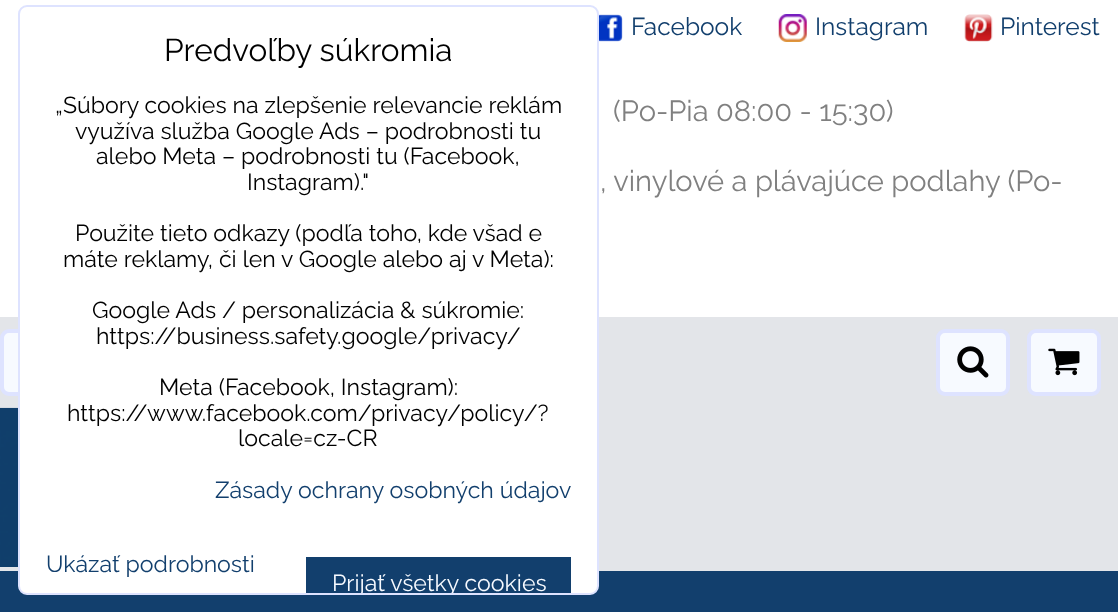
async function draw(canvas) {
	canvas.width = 1118;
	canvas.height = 612;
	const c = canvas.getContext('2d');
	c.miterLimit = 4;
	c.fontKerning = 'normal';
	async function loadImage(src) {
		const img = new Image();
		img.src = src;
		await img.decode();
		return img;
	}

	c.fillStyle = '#e3e5e9';
	c.fillRect(0, 0, 1118, 612);
	c.fillStyle = '#fff';
	c.fillRect(0, 0, 1118, 317);
	c.fillStyle = '#f7faff';
	c.beginPath();
	c.roundRect(2, 331, 71, 63, 7);
	c.fill();
	c.strokeStyle = '#dee3ff';
	c.lineWidth = 4;
	c.stroke();
	c.fillStyle = '#123f6d';
	c.fillRect(0, 571, 1118, 41);
	c.fillStyle = '#fff';
	c.beginPath();
	c.roundRect(19, 6, 579, 588, 8);
	c.fill();
	c.lineWidth = 2;
	c.stroke();
	c.font = '100 31.5px Raleway';
	c.fillStyle = '#000';
	c.fillText('Predvoľby súkromia', 164, 61);
	c.font = '100 23.1px Raleway';
	for (const [text, x, y] of [
		['„Súbory cookies na zlepšenie relevancie reklám', 55, 113],
		['využíva služba Google Ads – podrobnosti tu', 75, 139],
		['alebo Meta – podrobnosti tu (Facebook,', 96, 164],
		['Instagram)."', 247, 190],
		['Použite tieto odkazy (podľa toho, kde všad e', 75, 241],
		['máte reklamy, či len v Google alebo aj v Meta):', 63, 267],
		['Google Ads / personalizácia & súkromie:', 92, 318],
		['https://business.safety.google/privacy/', 96, 344],
		['Meta (Facebook, Instagram):', 159, 395],
		['https://www.facebook.com/privacy/policy/?', 67, 421],
		['locale=cz-CR', 238, 446],
	]) {
		c.fillText(text, x, y);
	}
	c.fillStyle = '#123f6d';
	c.fillText('Zásady ochrany osobných údajov', 215, 498);
	c.fillText('Ukázať podrobnosti', 46, 572);
	c.fillRect(306, 557, 265, 36);
	c.save();
	c.beginPath();
	c.roundRect(19, 7, 578, 586, 7);
	c.clip();
	c.fillStyle = '#f7faff';
	c.fillText('Prijať všetky cookies', 332, 591);
	c.restore();
	c.drawImage(await loadImage('img1.png'), 599, 14, 24, 28);
	c.font = '100 24.5px Raleway';
	c.fillText('Facebook', 631, 35);
	c.drawImage(await loadImage('img2.png'), 778, 14, 29, 28);
	c.fillText('Instagram', 815, 35);
	c.drawImage(await loadImage('img3.png'), 964, 14, 29, 28);
	c.fillText('Pinterest', 1000, 35);
	c.font = '100 29.1px Raleway';
	c.fillStyle = '#808080';
	c.fillText('(Po-Pia 08:00 - 15:30)', 613, 121);
	c.fillText(', vinylové a plávajúce podlahy (Po-', 600, 191);
	c.fillStyle = '#f7faff';
	c.beginPath();
	c.roundRect(938, 331, 70, 63, 7);
	c.fill();
	c.lineWidth = 4;
	c.stroke();
	c.drawImage(await loadImage('img4.png'), 957, 346, 32, 32);
	c.beginPath();
	c.roundRect(1029, 331, 70, 63, 7);
	c.fill();
	c.stroke();
	c.drawImage(await loadImage('img5.png'), 1048, 348, 32, 28);
	c.drawImage(await loadImage('img6.png'), 0, 407, 18, 160);
}

draw(document.querySelector('canvas'));
